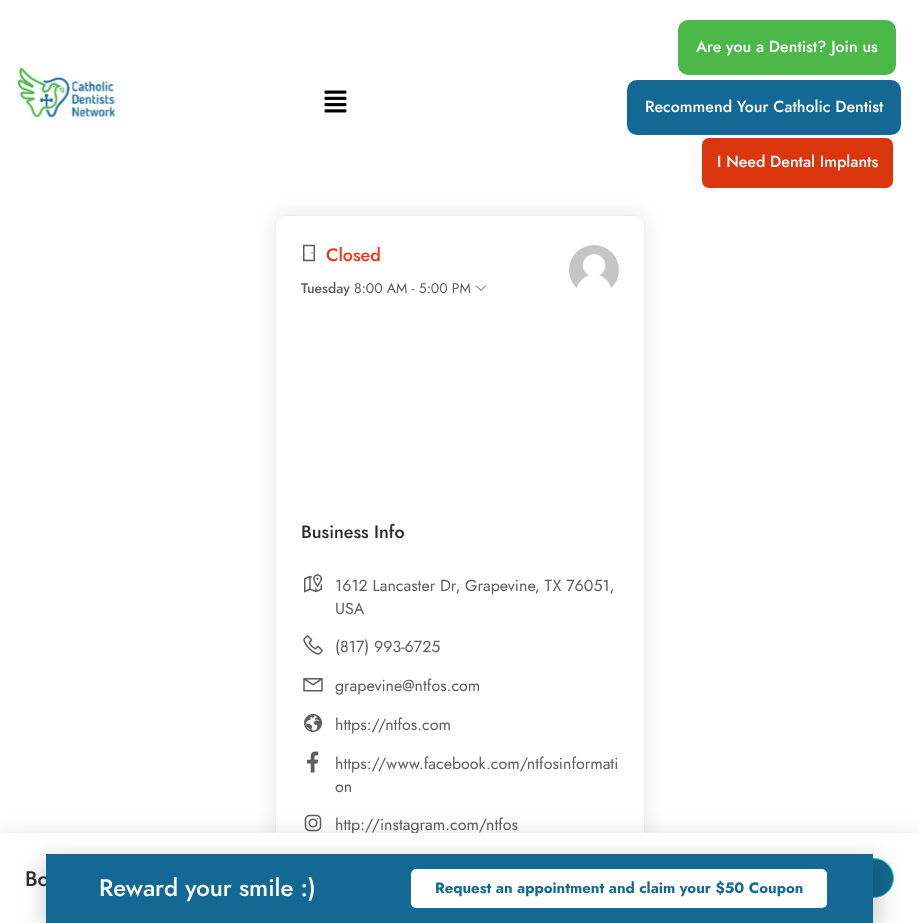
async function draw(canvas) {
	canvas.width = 919;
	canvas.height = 923;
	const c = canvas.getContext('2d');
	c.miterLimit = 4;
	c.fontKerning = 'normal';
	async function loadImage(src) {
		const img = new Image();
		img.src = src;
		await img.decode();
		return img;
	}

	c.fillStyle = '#fff';
	c.fillRect(0, 0, 919, 923);
	c.fillStyle = '#0000001a';
	c.filter = 'blur(10px)';
	c.beginPath();
	c.roundRect(275, 215, 370, 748, 10);
	c.fill();
	c.filter = 'none';
	c.fillStyle = '#fff';
	c.fillRect(280, 202, 360, 4);
	c.drawImage(await loadImage('img1.png'), 18, 68, 97, 50);
	c.drawImage(await loadImage('img2.png'), 324, 90, 23, 23);
	c.fillStyle = '#4cb84a';
	c.beginPath();
	c.roundRect(679.5, 21.5, 215, 52, 8.5);
	c.fill();
	c.strokeStyle = '#4cb84a';
	c.lineWidth = 3;
	c.stroke();
	c.font = '500 16px Jost';
	c.fillStyle = '#fff';
	c.fillText('Are you a Dentist? Join us', 696, 52);
	c.fillStyle = '#136993';
	c.beginPath();
	c.roundRect(628.5, 81.5, 271, 52, 8.5);
	c.fill();
	c.strokeStyle = '#136993';
	c.stroke();
	c.fillStyle = '#fff';
	c.fillText('Recommend Your Catholic Dentist', 645, 112);
	c.fillStyle = '#db360e';
	c.beginPath();
	c.roundRect(700.5, 136.5, 194, 53, 8.5);
	c.fill();
	c.strokeStyle = '#fff';
	c.stroke();
	c.fillStyle = '#fff';
	c.fillText('I Need Dental Implants', 717, 167);
	c.beginPath();
	c.roundRect(275.5, 215.5, 369, 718, 9.5);
	c.fill();
	c.strokeStyle = '#eee';
	c.lineWidth = 1;
	c.stroke();
	c.drawImage(await loadImage('img3.png'), 303, 244, 12, 18);
	c.font = '500 18px Jost';
	c.fillStyle = '#f43319';
	c.fillText('Closed', 326, 261);
	c.font = '500 14px Jost';
	c.fillStyle = '#5d5d5d';
	c.fillText('Tuesday', 301, 293);
	c.font = '14px Jost';
	c.fillText('8:00 AM - 5:00 PM', 354, 293);
	c.drawImage(await loadImage('img4.png'), 476, 285, 10, 6);
	c.drawImage(await loadImage('img5.png'), 569, 245, 50, 43);
	c.font = '500 18px Jost';
	c.fillStyle = '#2d2d2d';
	c.fillText('Business Info', 301, 538);
	c.drawImage(await loadImage('img6.png'), 304, 574, 18, 19);
	c.font = '16px Jost';
	c.fillStyle = '#5d5d5d';
	c.fillText('1612 Lancaster Dr, Grapevine, TX 76051,', 335, 591);
	c.fillText('USA', 335, 614);
	c.drawImage(await loadImage('img7.png'), 303, 635, 20, 20);
	c.fillText('(817) 993-6725', 335, 652);
	c.drawImage(await loadImage('img8.png'), 303, 678, 20, 14);
	c.fillText('grapevine@ntfos.com', 335, 691);
	c.drawImage(await loadImage('img9.png'), 304, 714, 18, 18);
	c.fillText('https://ntfos.com', 335, 730);
	c.drawImage(await loadImage('img10.png'), 307, 751, 12, 22);
	c.fillText('https://www.facebook.com/ntfosinformati', 335, 769);
	c.fillText('on', 335, 792);
	c.drawImage(await loadImage('img11.png'), 304, 814, 18, 18);
	c.fillText('http://instagram.com/ntfos', 335, 830);
	c.fillStyle = '#0000001a';
	c.filter = 'blur(10px)';
	c.beginPath();
	c.rect(0, 833, 919, 90);
	c.fill();
	c.filter = 'none';
	c.fillStyle = '#fff';
	c.fillRect(0, 833, 919, 90);
	c.font = '500 21px Jost';
	c.fillStyle = '#2d2d2d';
	c.fillText('Bo', 25, 886);
	c.fillStyle = '#146993';
	c.beginPath();
	c.roundRect(809.5, 858.5, 84, 39, 19.5);
	c.fill();
	c.strokeStyle = '#23d3d3';
	c.stroke();
	c.fillStyle = '#00000033';
	c.filter = 'blur(11.5px)';
	c.beginPath();
	c.rect(45, 859, 833, 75);
	c.fill();
	c.filter = 'none';
	c.fillStyle = '#136993';
	c.fillRect(46, 854, 827, 69);
	c.font = '500 24px Jost';
	c.fillStyle = '#fff';
	c.fillText('Reward your smile :)', 99, 896);
	c.beginPath();
	c.roundRect(411, 869, 416, 39, 5);
	c.fill();
	c.font = 'bold 15px Jost';
	c.fillStyle = '#136993';
	c.fillText('Request an appointment and claim your $50 Coupon', 435, 893);
}

draw(document.querySelector('canvas'));
